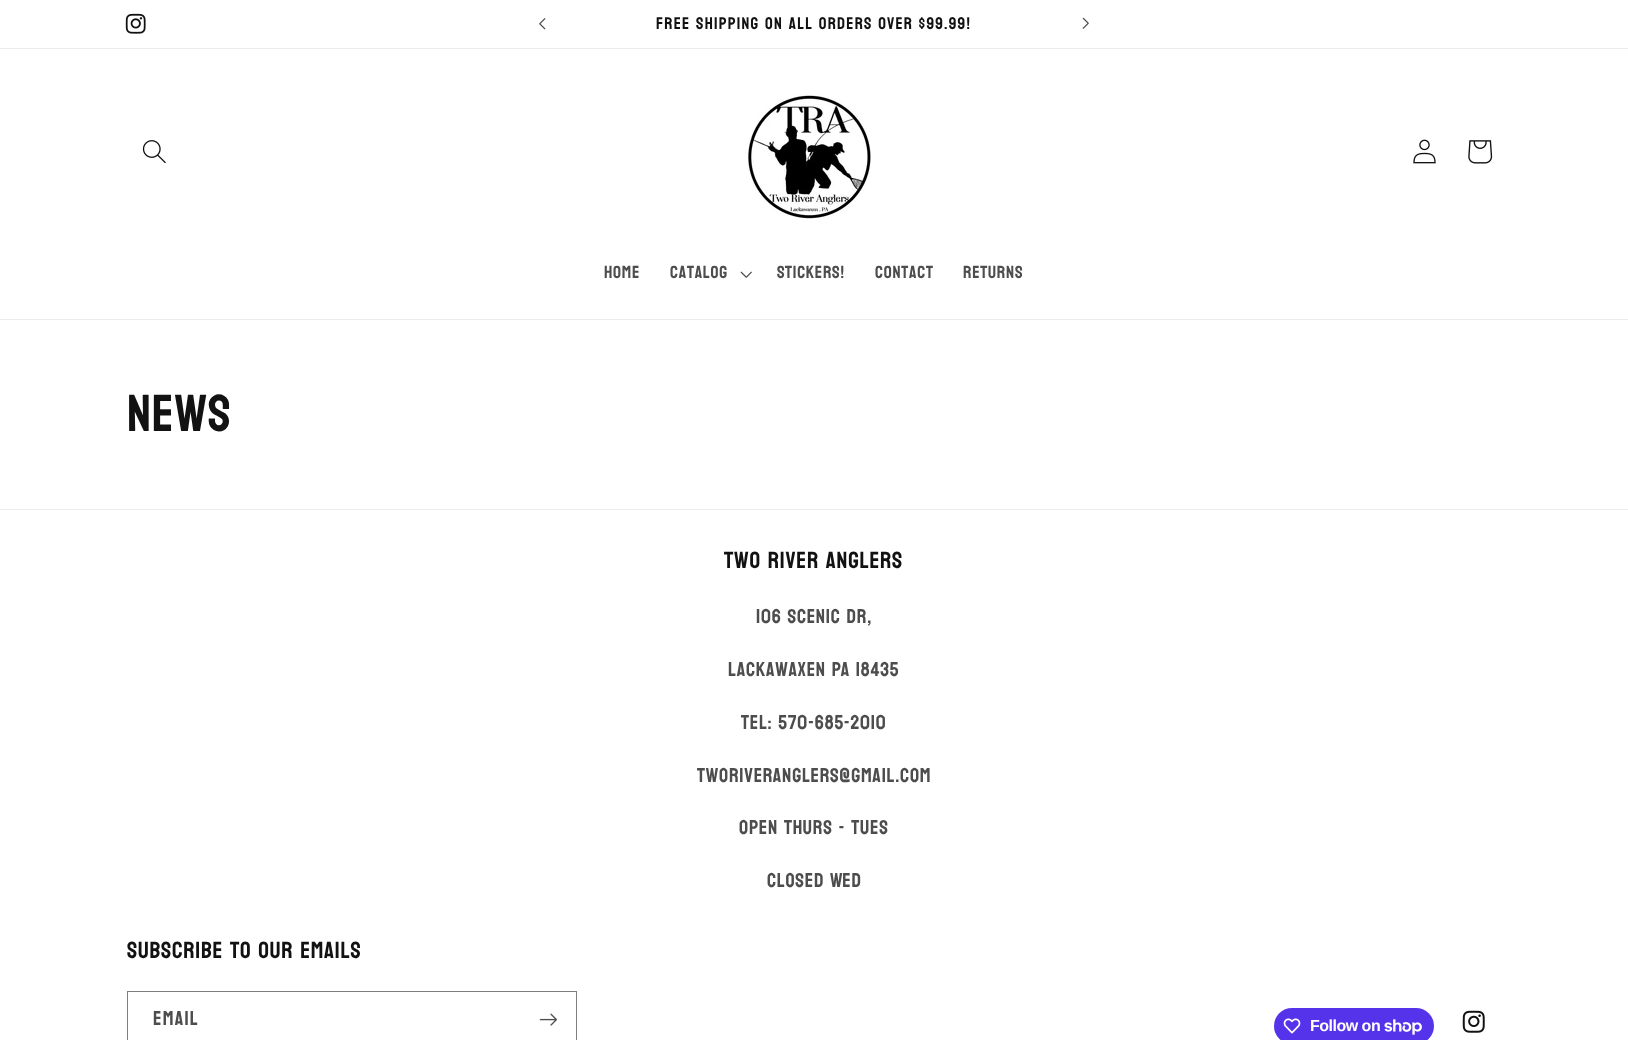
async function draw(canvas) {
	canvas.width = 1628;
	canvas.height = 1040;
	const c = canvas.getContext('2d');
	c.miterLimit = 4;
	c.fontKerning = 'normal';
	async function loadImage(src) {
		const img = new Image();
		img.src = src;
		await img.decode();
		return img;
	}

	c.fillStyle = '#fff';
	c.fillRect(0, 0, 1628, 1040);
	c.fillStyle = '#ececec';
	c.fillRect(0, 48, 1628, 1);
	c.drawImage(await loadImage('img1.png'), 125, 13, 21, 21);
	c.drawImage(await loadImage('img2.png'), 539, 18, 7, 12);
	c.letterSpacing = '1.25px';
	c.font = '16.9px Bayon';
	c.fillStyle = '#121212';
	c.fillText('FREE SHIPPING ON ALL ORDERS OVER $99.99!', 656, 29);
	c.drawImage(await loadImage('img3.png'), 1082, 17, 7, 12);
	c.fillStyle = '#ececec';
	c.fillRect(0, 319, 1628, 1);
	c.drawImage(await loadImage('img4.png'), 142, 140, 24, 24);
	c.drawImage(await loadImage('img5.png'), 747, 94, 124, 125);
	c.drawImage(await loadImage('img6.png'), 1413, 139, 23, 25);
	c.drawImage(await loadImage('img7.png'), 1468, 140, 25, 24);
	c.letterSpacing = '0.75px';
	c.font = '17.5px Bayon';
	c.fillStyle = '#4d4d4d';
	c.fillText('Home', 604, 278);
	c.fillText('Catalog', 670, 278);
	c.drawImage(await loadImage('img8.png'), 740, 271, 12, 7);
	for (const [text, x, y] of [
		['STICKERS!', 777, 278],
		['Contact', 875, 278],
		['Returns', 963, 278],
	]) {
		c.fillText(text, x, y);
	}
	c.font = '52px Bayon';
	c.fillStyle = '#121212';
	c.fillText('News', 127, 431);
	c.fillStyle = '#ececec';
	c.fillRect(0, 509, 1628, 1);
	c.font = '23.4px Bayon';
	c.fillStyle = '#121212';
	c.fillText('Two River Anglers', 724, 568);
	c.font = '20px Bayon';
	c.fillStyle = '#4d4d4d';
	for (const [text, x, y] of [
		['106 Scenic Dr,', 756, 623],
		['Lackawaxen PA 18435', 728, 676],
		['tel: 570-685-2010', 741, 729],
		['tworiveranglers@gmail.com', 697, 782],
		['OPEN Thurs - Tues', 739, 834],
		['CLOSED Wed', 767, 887],
	]) {
		c.fillText(text, x, y);
	}
	c.font = '23.4px Bayon';
	c.fillStyle = '#121212';
	c.fillText('Subscribe to our emails', 127, 958);
	c.strokeStyle = '#7d7d7d';
	c.strokeRect(127.5, 991.5, 449, 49);
	c.letterSpacing = '1.25px';
	c.font = '20px Bayon';
	c.fillStyle = '#4d4d4d';
	c.fillText('Email', 153, 1025);
	c.drawImage(await loadImage('img9.png'), 539, 1013, 18, 13);
	c.fillStyle = '#5433eb';
	c.beginPath();
	c.roundRect(1274, 1008, 160, 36, 18);
	c.fill();
	c.drawImage(await loadImage('img10.png'), 1283, 1018, 18, 16);
	c.letterSpacing = '-0.5px';
	c.font = 'bold 16px Liberation Sans';
	c.fillStyle = '#fff';
	c.fillText('Follow on', 1310, 1031);
	c.drawImage(await loadImage('img11.png'), 1384, 1019, 38, 16);
	c.drawImage(await loadImage('img12.png'), 1462, 1010, 23, 23);
}

draw(document.querySelector('canvas'));
